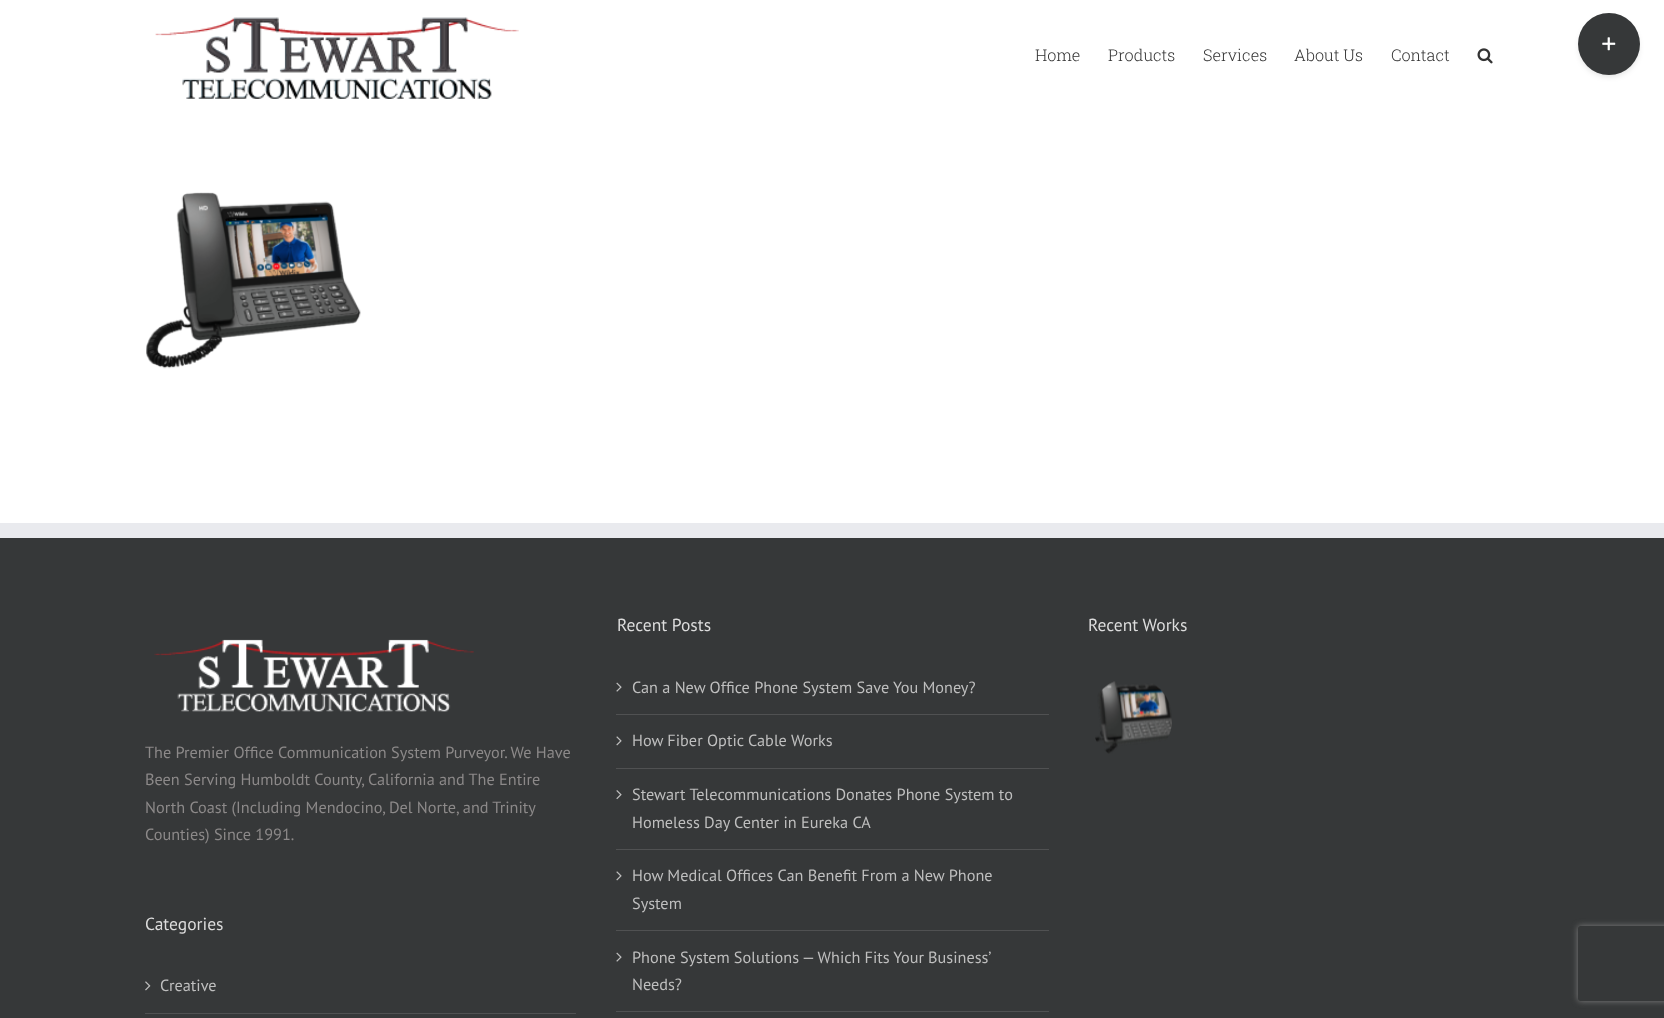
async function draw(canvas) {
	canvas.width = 1664;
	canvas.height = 1018;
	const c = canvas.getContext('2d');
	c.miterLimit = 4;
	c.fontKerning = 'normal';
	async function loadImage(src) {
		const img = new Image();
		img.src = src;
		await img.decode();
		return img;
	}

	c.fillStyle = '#fff';
	c.fillRect(0, 0, 1664, 1018);
	c.drawImage(await loadImage('img1.png'), 155, 17, 364, 82);
	c.font = '300 16.25px Roboto Slab';
	c.fillStyle = '#333';
	for (const [text, x, y] of [
		['Home', 1035, 61],
		['Products', 1108, 61],
		['Services', 1203, 61],
		['About Us', 1294, 61],
		['Contact', 1391, 61],
	]) {
		c.fillText(text, x, y);
	}
	c.drawImage(await loadImage('img2.png'), 1477, 48, 16, 16);
	c.fillStyle = '#00000024';
	c.filter = 'blur(3px)';
	c.beginPath();
	c.roundRect(1580, 19, 58, 57, 28.5);
	c.fill();
	c.filter = 'none';
	c.fillStyle = '#363839';
	c.beginPath();
	c.arc(1609, 44, 31, 0, 2 * Math.PI);
	c.fill();
	c.drawImage(await loadImage('img3.png'), 1602, 37, 14, 14);
	c.drawImage(await loadImage('img4.png'), 146, 192, 215, 177);
	c.fillRect(0, 538, 1664, 480);
	c.fillStyle = '#e9eaee';
	c.fillRect(0, 523, 1664, 15);
	c.font = '17.5px PT Sans';
	c.fillStyle = '#ddd';
	c.fillText('Recent Posts', 617, 631);
	c.fillStyle = '#505152';
	c.fillRect(616, 714, 433, 1);
	c.drawImage(await loadImage('img5.png'), 616, 682, 6, 10);
	c.font = '16.25px PT Sans';
	c.fillStyle = '#bfbfbf';
	c.fillText('Can a New Office Phone System Save You Money?', 632, 693);
	c.fillStyle = '#505152';
	c.fillRect(616, 768, 433, 1);
	c.drawImage(await loadImage('img6.png'), 616, 736, 6, 10);
	c.fillStyle = '#bfbfbf';
	c.fillText('How Fiber Optic Cable Works', 632, 746);
	c.fillStyle = '#505152';
	c.fillRect(616, 849, 433, 1);
	c.drawImage(await loadImage('img7.png'), 616, 790, 6, 10);
	c.fillStyle = '#bfbfbf';
	c.fillText('Stewart Telecommunications Donates Phone System to', 632, 800);
	c.fillText('Homeless Day Center in Eureka CA', 632, 828);
	c.fillStyle = '#505152';
	c.fillRect(616, 930, 433, 1);
	c.drawImage(await loadImage('img6.png'), 616, 871, 6, 10);
	c.fillStyle = '#bfbfbf';
	c.fillText('How Medical Offices Can Benefit From a New Phone', 632, 881);
	c.fillText('System', 632, 909);
	c.fillStyle = '#505152';
	c.fillRect(616, 1011, 433, 1);
	c.drawImage(await loadImage('img5.png'), 616, 952, 6, 10);
	c.wordSpacing = '-0.25px';
	c.fillStyle = '#bfbfbf';
	c.fillText('Phone System Solutions — Which Fits Your Business’', 632, 963);
	c.wordSpacing = '0px';
	c.fillText('Needs?', 632, 990);
	c.font = '17.5px PT Sans';
	c.fillStyle = '#ddd';
	c.fillText('Recent Works', 1088, 631);
	c.drawImage(await loadImage('img8.png'), 1095, 681, 77, 73);
	c.drawImage(await loadImage('img9.png'), 154, 639, 320, 73);
	c.font = '16.25px PT Sans';
	c.fillStyle = '#8c8989';
	for (const [text, x, y] of [
		['The Premier Office Communication System Purveyor. We Have', 145, 758],
		['Been Serving Humboldt County, California and The Entire', 145, 785],
		['North Coast (Including Mendocino, Del Norte, and Trinity', 145, 813],
		['Counties) Since 1991.', 145, 840],
	]) {
		c.fillText(text, x, y);
	}
	c.font = '17.5px PT Sans';
	c.fillStyle = '#ddd';
	c.fillText('Categories', 145, 930);
	c.fillStyle = '#505152';
	c.fillRect(145, 1013, 431, 1);
	c.drawImage(await loadImage('img10.png'), 145, 981, 6, 10);
	c.font = '16.25px PT Sans';
	c.fillStyle = '#bfbfbf';
	c.fillText('Creative', 160, 991);
	c.save();
	c.beginPath();
	c.moveTo(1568, 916);
	c.lineTo(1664, 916);
	c.lineTo(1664, 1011);
	c.lineTo(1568, 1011);
	c.closePath();
	c.moveTo(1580.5, 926);
	c.lineTo(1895.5, 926);
	c.bezierCurveTo(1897, 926, 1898, 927, 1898, 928.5);
	c.lineTo(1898, 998.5);
	c.bezierCurveTo(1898, 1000, 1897, 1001, 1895.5, 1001);
	c.lineTo(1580.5, 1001);
	c.bezierCurveTo(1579, 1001, 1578, 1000, 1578, 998.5);
	c.lineTo(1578, 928.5);
	c.bezierCurveTo(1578, 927, 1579, 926, 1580.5, 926);
	c.closePath();
	c.clip('evenodd');
	c.fillStyle = '#808080';
	c.filter = 'blur(3px)';
	c.beginPath();
	c.roundRect(1578, 926, 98, 75, 2.5);
	c.fill();
	c.filter = 'none';
	c.restore();
}

draw(document.querySelector('canvas'));
